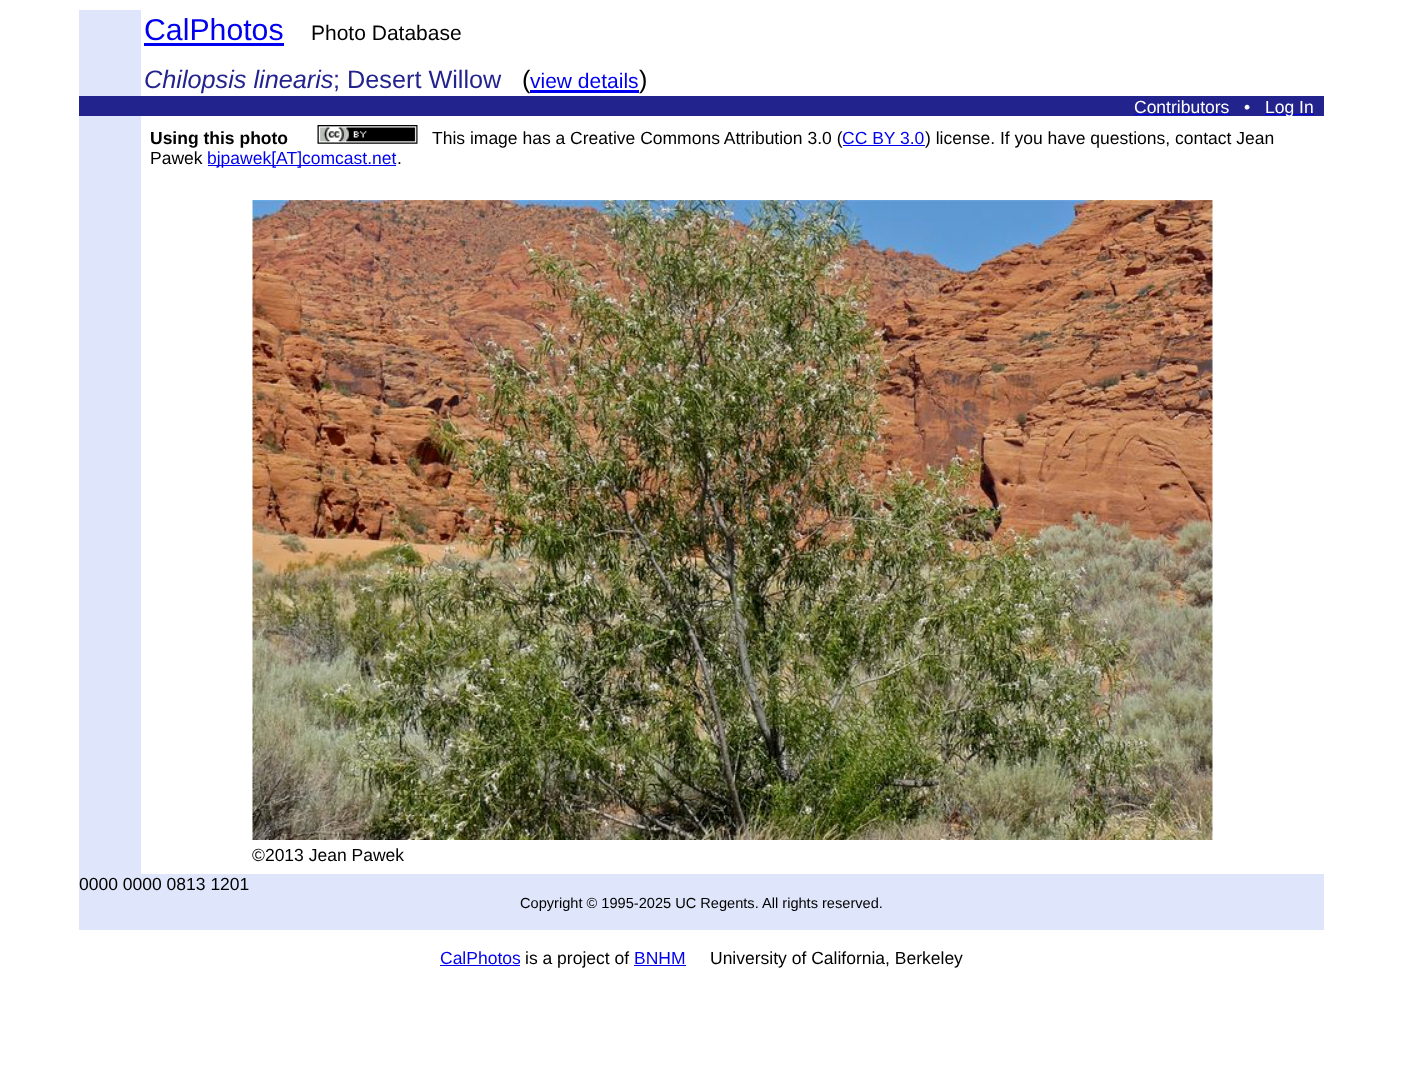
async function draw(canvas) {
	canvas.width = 1402;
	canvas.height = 1086;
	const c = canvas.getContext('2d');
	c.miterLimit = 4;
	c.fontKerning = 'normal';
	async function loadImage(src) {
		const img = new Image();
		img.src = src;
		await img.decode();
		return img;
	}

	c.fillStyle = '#fff';
	c.fillRect(0, 0, 1402, 1086);
	c.fillStyle = '#dfe5fa';
	c.fillRect(79, 10, 62, 86);
	c.font = '30.25px Liberation Sans';
	c.fillStyle = '#00e';
	c.fillText('CalPhotos', 144, 40);
	c.fillRect(144, 43, 140, 3);
	c.font = '21px Liberation Sans';
	c.fillStyle = '#000';
	c.fillText('Photo Database', 311, 40);
	c.font = 'italic 25.25px Liberation Sans';
	c.fillStyle = '#23238e';
	c.fillText('Chilopsis linearis', 144, 88);
	c.font = '25.25px Liberation Sans';
	c.fillText('; Desert Willow', 333, 88);
	c.fillStyle = '#000';
	c.fillText('(', 522, 88);
	c.fillStyle = '#00e';
	c.fillRect(530, 90, 109, 3);
	c.font = '21px Liberation Sans';
	c.fillText('view details', 530, 88);
	c.font = '25.25px Liberation Sans';
	c.fillStyle = '#000';
	c.fillText(')', 639, 88);
	c.fillStyle = '#23238e';
	c.fillRect(79, 96, 1245, 20);
	c.font = '17.5px Liberation Sans';
	c.fillStyle = '#fff';
	c.fillText('Contributors', 1134, 113);
	c.fillStyle = '#00e';
	c.fillRect(1134, 114, 96, 1);
	c.fillStyle = '#fff';
	c.fillText('•', 1244, 113);
	c.fillStyle = '#00e';
	c.fillRect(1265, 114, 49, 1);
	c.fillStyle = '#fff';
	c.fillText('Log In', 1265, 113);
	c.fillStyle = '#dfe5fa';
	c.fillRect(79, 116, 62, 758);
	c.font = 'bold 17.5px Liberation Sans';
	c.fillStyle = '#000';
	c.fillText('Using this photo', 150, 144);
	c.drawImage(await loadImage('img1.png'), 317, 125, 101, 19);
	c.font = '17.5px Liberation Sans';
	c.fillText('This image has a Creative Commons Attribution 3.0 (', 432, 144);
	c.fillStyle = '#00e';
	c.fillText('CC BY 3.0', 842, 144);
	c.fillRect(843, 145, 82, 1);
	c.fillStyle = '#000';
	c.fillText(') license. If you have questions, contact Jean', 925, 144);
	c.fillText('Pawek', 150, 164);
	c.fillStyle = '#00e';
	c.fillRect(208, 165, 188, 1);
	c.fillText('bjpawek[AT]comcast.net', 207, 164);
	c.fillStyle = '#000';
	c.fillText('.', 397, 164);
	c.drawImage(await loadImage('img2.png'), 252, 200, 961, 640);
	c.fillText('©2013 Jean Pawek', 252, 861);
	c.fillStyle = '#dfe5fa';
	c.fillRect(79, 874, 1245, 56);
	c.fillStyle = '#000';
	c.fillText('0000 0000 0813 1201', 79, 890);
	c.font = '14.6px Liberation Sans';
	c.fillText('Copyright © 1995-2025 UC Regents.', 520, 908);
	c.fillText('All rights reserved.', 762, 908);
	c.font = '17.5px Liberation Sans';
	c.fillStyle = '#00e';
	c.fillText('CalPhotos', 440, 964);
	c.fillRect(440, 965, 80, 1);
	c.fillStyle = '#000';
	c.fillText('is a project of', 525, 964);
	c.fillStyle = '#00e';
	c.fillText('BNHM', 634, 964);
	c.fillRect(634, 965, 52, 1);
	c.fillStyle = '#000';
	c.fillText('University of California, Berkeley', 710, 964);
}

draw(document.querySelector('canvas'));
